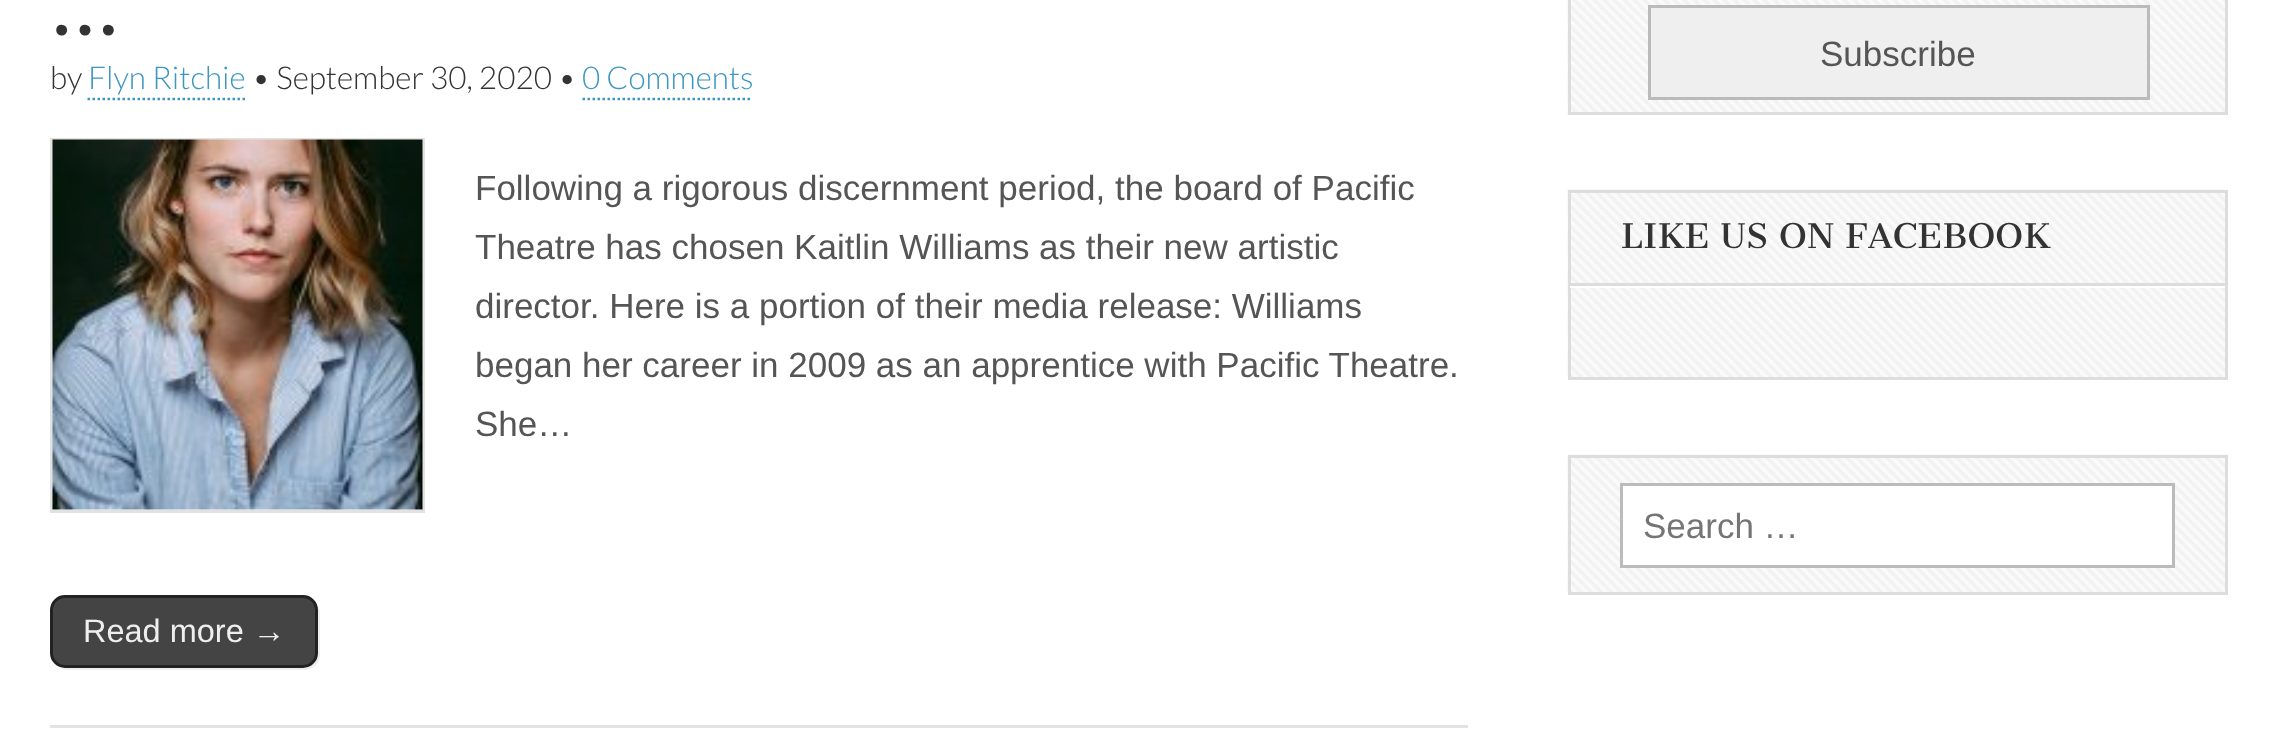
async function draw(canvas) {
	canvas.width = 2276;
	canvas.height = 748;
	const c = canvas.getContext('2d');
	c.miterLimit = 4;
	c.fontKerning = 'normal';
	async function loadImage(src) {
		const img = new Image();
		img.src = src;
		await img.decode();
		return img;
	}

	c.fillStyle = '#fff';
	c.fillRect(0, 0, 2276, 748);
	c.font = '70px Cantata One';
	c.fillStyle = '#333';
	c.fillText('…', 50, 35);
	c.font = '300 31.5px Lato';
	c.fillText('by', 50, 89);
	c.fillStyle = '#3d97c2';
	c.fillText('Flyn Ritchie', 88, 89);
	c.beginPath();
	c.moveTo(87.5, 99);
	c.lineTo(245, 99);
	c.strokeStyle = '#3d97c2';
	c.lineWidth = 2.5;
	c.setLineDash([2.5, 2.5]);
	c.stroke();
	c.fillStyle = '#333';
	c.fillText('• September 30, 2020 •', 252, 89);
	c.fillStyle = '#3d97c2';
	c.fillText('0 Comments', 582, 89);
	c.beginPath();
	c.moveTo(582.5, 99);
	c.lineTo(752.5, 99);
	c.stroke();
	c.fillStyle = '#e2e2e2';
	c.fillRect(50, 725, 1418, 3);
	c.strokeStyle = '#e2e2e2';
	c.lineWidth = 3;
	c.setLineDash([]);
	c.strokeRect(51.5, 139.5, 372, 372);
	c.drawImage(await loadImage('img1.png'), 52, 139, 371, 371);
	c.font = '35px Liberation Sans';
	c.fillStyle = '#555';
	for (const [text, x, y] of [
		['Following a rigorous discernment period, the board of Pacific', 475, 200],
		['Theatre has chosen Kaitlin Williams as their new artistic', 475, 259],
		['director. Here is a portion of their media release: Williams', 475, 318],
		['began her career in 2009 as an apprentice with Pacific Theatre.', 475, 377],
		['She…', 475, 436],
	]) {
		c.fillText(text, x, y);
	}
	c.fillStyle = '#eee';
	c.beginPath();
	c.moveTo(57, 665);
	c.bezierCurveTo(60, 668, 64, 670, 68, 670);
	c.lineTo(305, 670);
	c.bezierCurveTo(313, 670, 320, 663, 320, 655);
	c.lineTo(320, 613);
	c.bezierCurveTo(320, 609, 318, 605, 315, 602);
	c.bezierCurveTo(317, 604, 318, 607, 318, 610);
	c.lineTo(318, 652);
	c.bezierCurveTo(318, 661, 311, 668, 302, 668);
	c.lineTo(65, 668);
	c.bezierCurveTo(62, 668, 59, 667, 57, 665);
	c.closePath();
	c.fill();
	c.fillStyle = '#444';
	c.beginPath();
	c.roundRect(51.5, 596.5, 265, 70, 13.5);
	c.fill();
	c.strokeStyle = '#222';
	c.stroke();
	c.font = '32.5px Liberation Sans';
	c.fillStyle = '#eee';
	c.fillText('Read more →', 83, 642);
	c.drawImage(await loadImage('img2.png'), 1567, 0, 658, 115);
	c.strokeStyle = '#ddd';
	c.strokeRect(1569.5, -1.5, 657, 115);
	c.fillStyle = '#efefef';
	c.beginPath();
	c.rect(1649.5, 6.5, 499, 92);
	c.fill();
	c.strokeStyle = '#bbb';
	c.stroke();
	c.font = '35px Liberation Sans';
	c.fillStyle = '#555';
	c.fillText('Subscribe', 1820, 66);
	c.drawImage(await loadImage('img3.png'), 1567, 189, 661, 191);
	c.strokeStyle = '#ddd';
	c.strokeRect(1569.5, 191.5, 657, 187);
	c.fillStyle = '#fff';
	c.fillRect(1570, 286, 655, 2);
	c.fillStyle = '#ddd';
	c.fillRect(1570, 283, 655, 3);
	c.font = '33.25px Cantata One';
	c.fillStyle = '#333';
	c.fillText('LIKE US ON FACEBOOK', 1621, 248);
	c.drawImage(await loadImage('img4.png'), 1567, 454, 661, 141);
	c.strokeRect(1569.5, 456.5, 657, 137);
	c.fillStyle = '#fff';
	c.beginPath();
	c.rect(1621.5, 484.5, 552, 82);
	c.fill();
	c.strokeStyle = '#bbb';
	c.stroke();
	c.font = '35px Liberation Sans';
	c.fillStyle = '#757575';
	c.fillText('Search …', 1643, 538);
}

draw(document.querySelector('canvas'));
